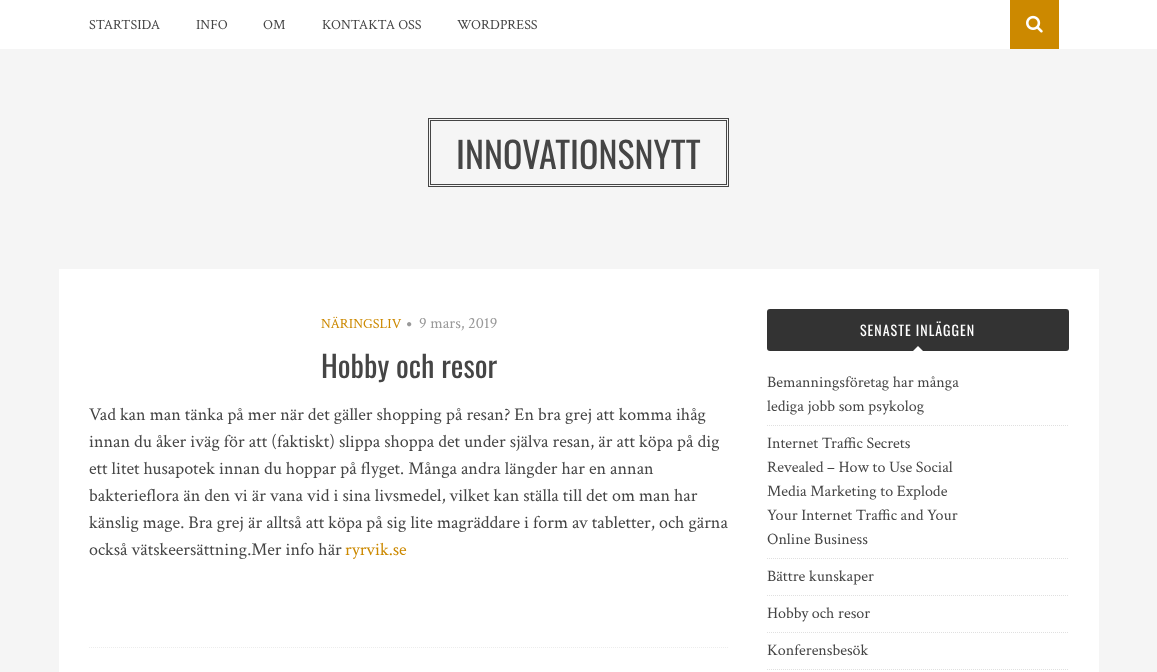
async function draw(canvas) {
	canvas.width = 1157;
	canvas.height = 672;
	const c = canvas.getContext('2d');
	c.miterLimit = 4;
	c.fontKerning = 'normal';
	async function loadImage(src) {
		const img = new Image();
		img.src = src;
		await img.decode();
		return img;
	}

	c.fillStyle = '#f5f5f5';
	c.fillRect(0, 0, 1157, 672);
	c.fillStyle = '#fff';
	c.fillRect(0, 0, 1157, 49);
	c.font = '14px Crimson Text';
	c.fillStyle = '#454545';
	for (const [text, x, y] of [
		['STARTSIDA', 89, 29],
		['INFO', 196, 29],
		['OM', 263, 29],
		['KONTAKTA OSS', 322, 29],
		['WORDPRESS', 457, 29],
	]) {
		c.fillText(text, x, y);
	}
	c.fillStyle = '#cc8900';
	c.fillRect(1010, 0, 49, 49);
	c.drawImage(await loadImage('img1.png'), 1026, 15, 17, 18);
	c.strokeStyle = '#454545';
	c.strokeRect(428.5, 118.5, 300, 68);
	c.strokeRect(430.5, 120.5, 296, 64);
	c.font = '36px Oswald';
	c.fillStyle = '#454545';
	c.fillText('INNOVATIONSNYTT', 456, 169);
	c.fillStyle = '#fff';
	c.fillRect(59, 269, 1040, 403);
	c.font = '14px Crimson Text';
	c.fillStyle = '#cc8900';
	c.fillText('NÄRINGSLIV', 321, 328);
	c.drawImage(await loadImage('img2.png'), 407, 322, 5, 5);
	c.font = '16px Crimson Text';
	c.fillStyle = '#999';
	c.fillText('9 mars, 2019', 419, 328);
	c.font = '30px Oswald';
	c.fillStyle = '#454545';
	c.fillText('Hobby och resor', 321, 378);
	c.font = '18px Crimson Text';
	for (const [text, x, y] of [
		['Vad kan man tänka på mer när det gäller shopping på resan? En bra grej att komma ihåg', 89, 420],
		['innan du åker iväg för att (faktiskt) slippa shoppa det under själva resan, är att köpa på dig', 89, 447],
		['ett litet husapotek innan du hoppar på flyget. Många andra längder har en annan', 89, 474],
		['bakterieflora än den vi är vana vid i sina livsmedel, vilket kan ställa till det om man har', 89, 501],
		['känslig mage. Bra grej är alltså att köpa på sig lite magräddare i form av tabletter, och gärna', 89, 528],
		['också vätskeersättning.Mer info här', 89, 555],
	]) {
		c.fillText(text, x, y);
	}
	c.fillStyle = '#cc8900';
	c.fillText('ryrvik.se', 345, 555);
	c.beginPath();
	c.moveTo(89, 647.5);
	c.lineTo(729, 647.5);
	c.strokeStyle = '#ededed';
	c.setLineDash([1, 1]);
	c.stroke();
	c.fillStyle = '#333';
	c.beginPath();
	c.roundRect(767, 309, 302, 42, 3);
	c.fill();
	c.letterSpacing = '1px';
	c.font = '14px Oswald';
	c.fillStyle = '#fff';
	c.fillText('SENASTE INLÄGGEN', 860, 336);
	c.beginPath();
	c.moveTo(923, 351);
	c.lineTo(913, 351);
	c.lineTo(918, 346);
	c.closePath();
	c.fill();
	c.beginPath();
	c.moveTo(767, 425.5);
	c.lineTo(1069, 425.5);
	c.strokeStyle = '#e0e0e0';
	c.stroke();
	c.letterSpacing = '0px';
	c.font = '16px Crimson Text';
	c.fillStyle = '#454545';
	c.fillText('Bemanningsföretag har många', 767, 387);
	c.fillText('lediga jobb som psykolog', 767, 411);
	c.beginPath();
	c.moveTo(767, 558.5);
	c.lineTo(1069, 558.5);
	c.stroke();
	for (const [text, x, y] of [
		['Internet Traffic Secrets', 767, 448],
		['Revealed – How to Use Social', 767, 472],
		['Media Marketing to Explode', 767, 496],
		['Your Internet Traffic and Your', 767, 520],
		['Online Business', 767, 544],
	]) {
		c.fillText(text, x, y);
	}
	c.beginPath();
	c.moveTo(767, 595.5);
	c.lineTo(1069, 595.5);
	c.stroke();
	c.fillText('Bättre kunskaper', 767, 581);
	c.beginPath();
	c.moveTo(767, 632.5);
	c.lineTo(1069, 632.5);
	c.stroke();
	c.fillText('Hobby och resor', 767, 618);
	c.beginPath();
	c.moveTo(767, 669.5);
	c.lineTo(1069, 669.5);
	c.stroke();
	c.fillText('Konferensbesök', 767, 655);
}

draw(document.querySelector('canvas'));
